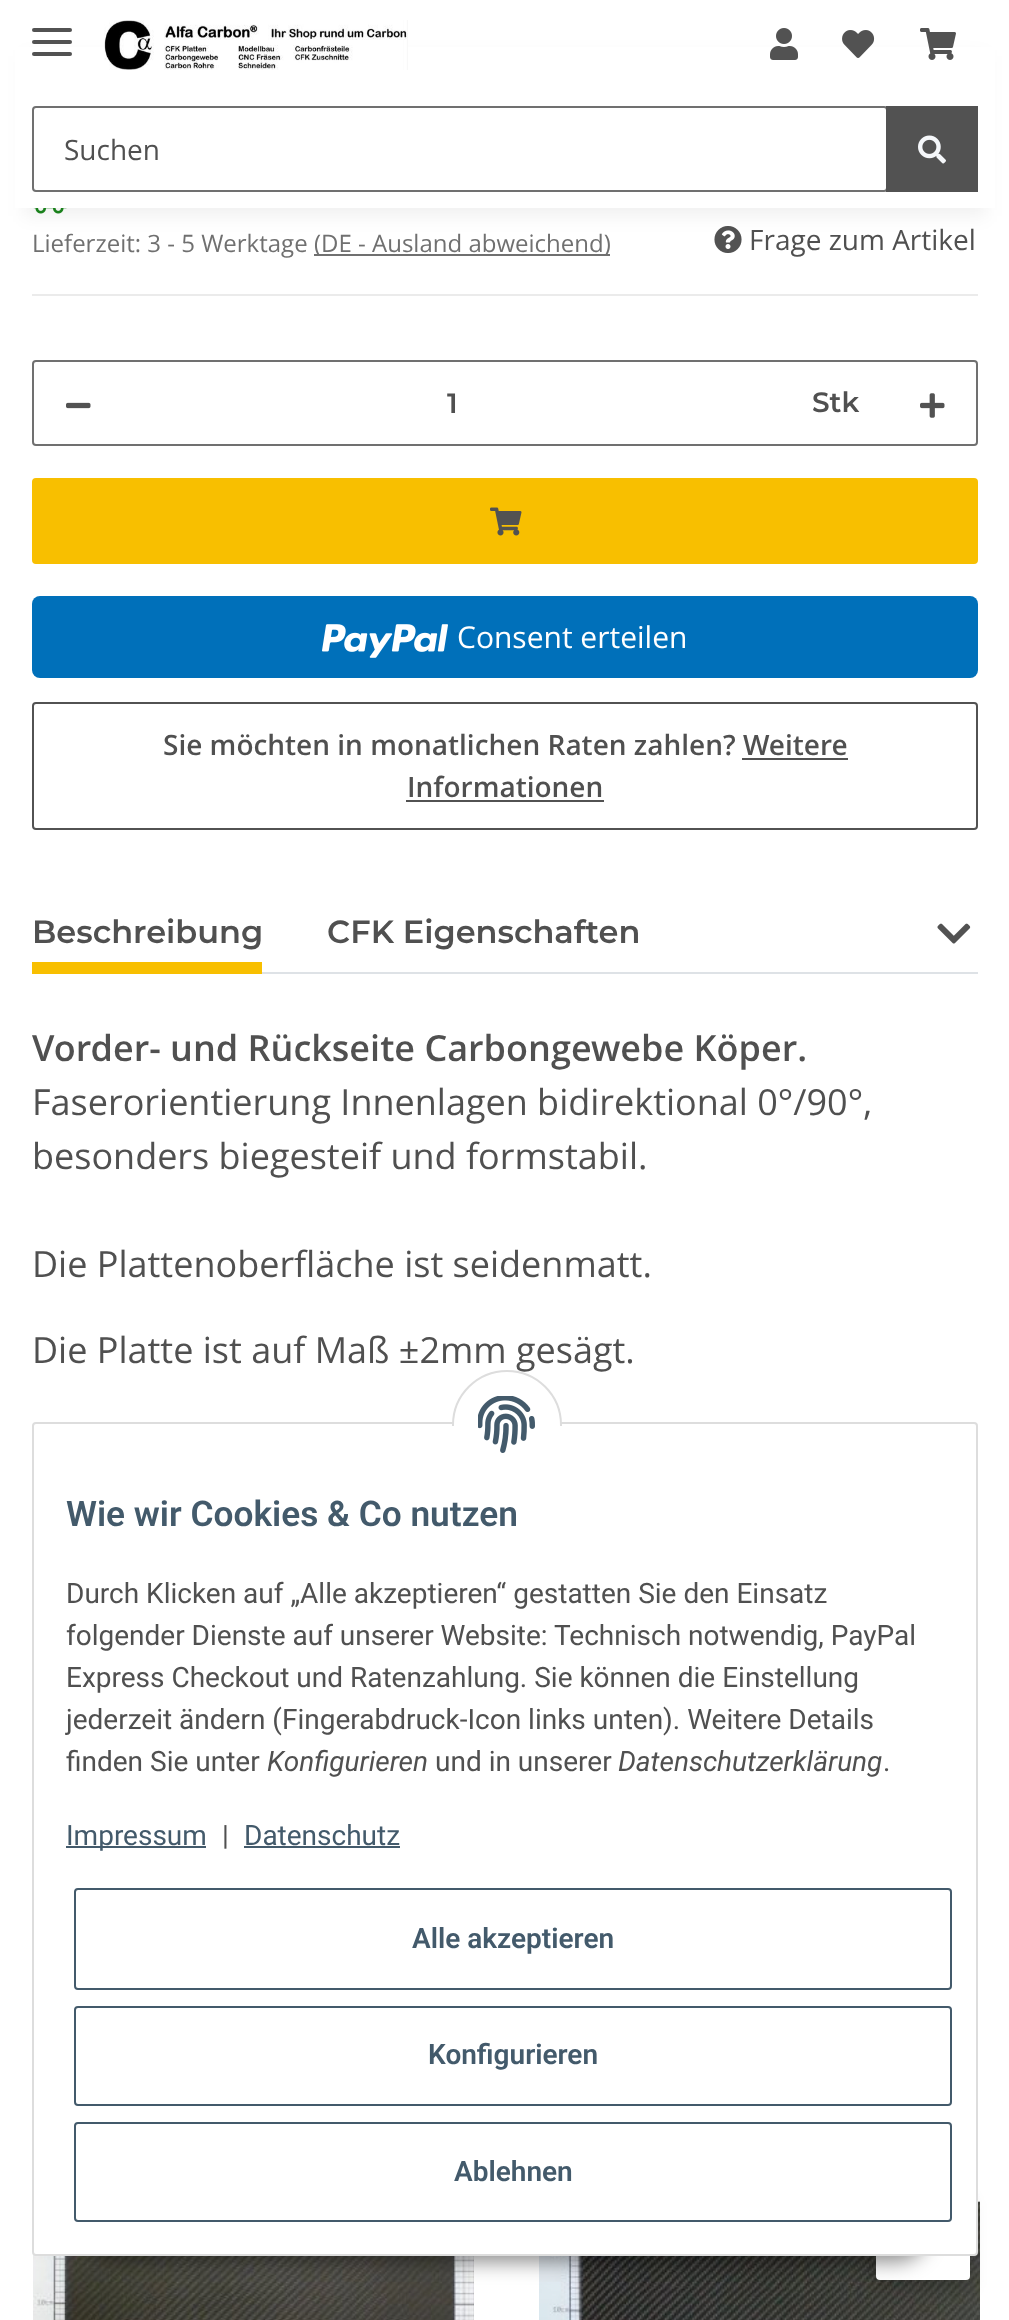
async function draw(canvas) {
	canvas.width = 1009;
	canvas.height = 2320;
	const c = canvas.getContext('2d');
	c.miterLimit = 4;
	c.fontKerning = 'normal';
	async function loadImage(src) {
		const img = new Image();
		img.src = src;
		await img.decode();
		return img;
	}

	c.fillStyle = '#fff';
	c.fillRect(0, 0, 1009, 2320);
	c.drawImage(await loadImage('img6.png'), 33, 208, 34, 6);
	c.drawImage(await loadImage('img7.png'), 714, 226, 28, 27);
	c.fillStyle = '#0000000f';
	c.filter = 'blur(9px)';
	c.beginPath();
	c.rect(24, 56, 962, 160);
	c.fill();
	c.filter = 'none';
	c.fillStyle = '#fff';
	c.fillRect(15, 47, 980, 161);
	c.fillStyle = '#525252';
	c.beginPath();
	c.roundRect(32, 40, 40, 4, 2);
	c.fill();
	c.beginPath();
	c.roundRect(32, 28, 40, 4, 2);
	c.fill();
	c.beginPath();
	c.roundRect(32, 52, 40, 4, 2);
	c.fill();
	c.drawImage(await loadImage('img1.png'), 104, 20, 304, 50);
	c.drawImage(await loadImage('img2.png'), 770, 28, 28, 32);
	c.drawImage(await loadImage('img3.png'), 842, 30, 33, 28);
	c.drawImage(await loadImage('img4.png'), 920, 28, 36, 32);
	c.beginPath();
	c.roundRect(33, 107, 854, 84, 3);
	c.strokeStyle = '#707070';
	c.lineWidth = 2;
	c.stroke();
	c.font = '28px Open Sans';
	c.fillStyle = '#505050';
	c.fillText('Suchen', 64, 160);
	c.fillStyle = '#525252';
	c.fillRect(886, 106, 92, 86);
	c.drawImage(await loadImage('img5.png'), 918, 135, 28, 29);
	c.fillStyle = '#ebebeb';
	c.fillRect(32, 294, 946, 2);
	c.font = '24px Open Sans';
	c.fillStyle = '#707070';
	c.fillText('Lieferzeit: 3 - 5 Werktage', 32, 252);
	c.fillRect(314, 254, 296, 2);
	c.fillText('(DE - Ausland abweichend)', 314, 252);
	c.font = '28px Open Sans';
	c.fillStyle = '#505050';
	c.fillText('Frage zum Artikel', 749, 250);
	c.beginPath();
	c.roundRect(33, 361, 944, 84, 3);
	c.stroke();
	c.drawImage(await loadImage('img8.png'), 66, 402, 25, 7);
	c.font = '600 28px Montserrat';
	c.fillText('1', 447, 413);
	c.fillText('Stk', 812, 412);
	c.drawImage(await loadImage('img9.png'), 920, 393, 25, 25);
	c.fillStyle = '#f8bf00';
	c.beginPath();
	c.roundRect(33, 479, 944, 84, 3);
	c.fill();
	c.strokeStyle = '#f8bf00';
	c.stroke();
	c.drawImage(await loadImage('img10.png'), 490, 507, 32, 29);
	c.fillStyle = '#0070ba';
	c.beginPath();
	c.roundRect(32, 596, 946, 82, 8);
	c.fill();
	c.drawImage(await loadImage('img11.png'), 322, 624, 126, 34);
	c.font = '30px Open Sans';
	c.fillStyle = '#fff';
	c.fillText('Consent erteilen', 457, 648);
	c.beginPath();
	c.roundRect(33, 703, 944, 126, 3);
	c.strokeStyle = '#525252';
	c.stroke();
	c.font = '600 28px Open Sans';
	c.fillStyle = '#505050';
	c.fillText('Sie möchten in monatlichen Raten zahlen? Weitere', 163, 755);
	c.fillText('Informationen', 407, 797);
	for (const [x, y, w, h, color] of [
		[742, 758, 106, 2, '#525252'],
		[406, 800, 198, 2, '#525252'],
		[262, 972, 716, 2, '#dee2e6'],
	]) {
		c.fillStyle = color;
		c.fillRect(x, y, w, h);
	}
	c.font = '600 32px Montserrat';
	c.fillStyle = '#505050';
	c.fillText('Beschreibung', 32, 943);
	c.fillStyle = '#f8bf00';
	c.fillRect(32, 962, 230, 12);
	c.fillStyle = '#505050';
	c.fillText('CFK Eigenschaften', 327, 943);
	c.drawImage(await loadImage('img12.png'), 937, 923, 34, 21);
	c.font = '600 36px Open Sans';
	c.fillText('Vorder- und Rückseite Carbongewebe Köper.', 32, 1061);
	c.font = '36px Open Sans';
	for (const [text, x, y] of [
		['Faserorientierung Innenlagen bidirektional 0°/90°,', 32, 1115],
		['besonders biegesteif und formstabil.', 32, 1169],
		['Die Plattenoberfläche ist seidenmatt.', 32, 1277],
		['Die Platte ist auf Maß ±2mm gesägt.', 32, 1363],
	]) {
		c.fillText(text, x, y);
	}
	c.drawImage(await loadImage('img13.png'), 33, 2254, 441, 66);
	c.drawImage(await loadImage('img14.png'), 539, 2193, 441, 127);
	c.fillStyle = '#00000033';
	c.filter = 'blur(8px)';
	c.beginPath();
	c.roundRect(876, 2200, 94, 88, 4);
	c.fill();
	c.filter = 'none';
	c.fillStyle = '#fff';
	c.beginPath();
	c.roundRect(876, 2192, 94, 88, 4);
	c.fill();
	c.fillStyle = '#00000073';
	c.filter = 'blur(10px)';
	c.beginPath();
	c.roundRect(82, 2198, 846, 64, 32);
	c.fill();
	c.filter = 'none';
	c.fillStyle = '#fff';
	c.beginPath();
	c.roundRect(33, 1423, 944, 832, 3);
	c.fill();
	c.strokeStyle = '#ddd';
	c.stroke();
	c.beginPath();
	c.arc(507, 1425, 54, 0, 2 * Math.PI);
	c.fill();
	c.stroke();
	c.fillRect(452, 1426, 110, 54);
	c.drawImage(await loadImage('img15.png'), 478, 1396, 57, 57);
	c.font = '600 35.25px Roboto';
	c.fillStyle = '#435a6b';
	c.fillText('Wie wir Cookies & Co nutzen', 66, 1526);
	c.font = '28px Roboto';
	c.fillStyle = '#505050';
	for (const [text, x, y] of [
		['Durch Klicken auf „Alle akzeptieren“ gestatten Sie den Einsatz', 66, 1603],
		['folgender Dienste auf unserer Website: Technisch notwendig, PayPal', 66, 1645],
		['Express Checkout und Ratenzahlung. Sie können die Einstellung', 66, 1687],
		['jederzeit ändern (Fingerabdruck-Icon links unten). Weitere Details', 66, 1729],
		['finden Sie unter', 66, 1771],
	]) {
		c.fillText(text, x, y);
	}
	c.font = 'italic 28px Roboto';
	c.fillText('Konfigurieren', 267, 1771);
	c.font = '28px Roboto';
	c.fillText('und in unserer', 435, 1771);
	c.font = 'italic 28px Roboto';
	c.fillText('Datenschutzerklärung', 618, 1771);
	c.font = '28px Roboto';
	c.fillText('.', 883, 1771);
	c.fillStyle = '#435a6b';
	c.fillRect(66, 1846, 140, 2);
	c.fillText('Impressum', 66, 1845);
	c.fillStyle = '#505050';
	c.fillText('|', 222, 1845);
	c.fillStyle = '#435a6b';
	c.fillText('Datenschutz', 244, 1845);
	c.fillRect(244, 1846, 156, 2);
	c.beginPath();
	c.roundRect(75, 1889, 876, 100, 3);
	c.strokeStyle = '#435a6b';
	c.stroke();
	c.font = '600 28px Roboto';
	c.fillText('Alle akzeptieren', 412, 1948);
	c.beginPath();
	c.roundRect(75, 2007, 876, 98, 3);
	c.stroke();
	c.fillText('Konfigurieren', 428, 2064);
	c.beginPath();
	c.roundRect(75, 2123, 876, 98, 3);
	c.stroke();
	c.fillText('Ablehnen', 454, 2181);
}

draw(document.querySelector('canvas'));
